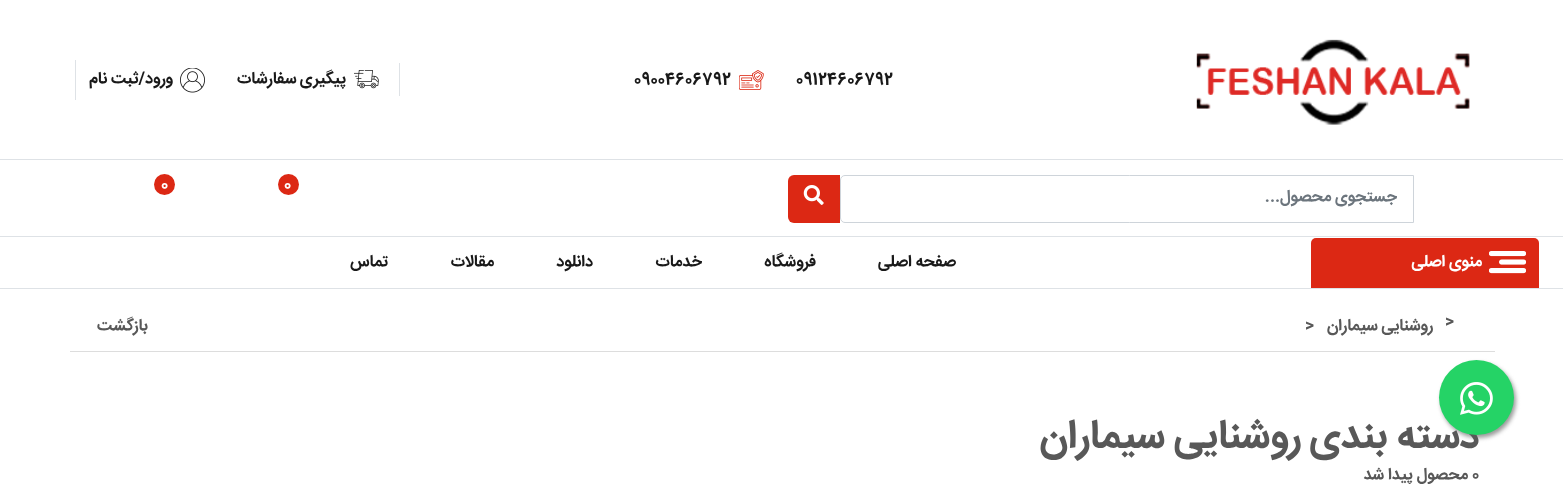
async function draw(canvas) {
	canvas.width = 1563;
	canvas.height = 484;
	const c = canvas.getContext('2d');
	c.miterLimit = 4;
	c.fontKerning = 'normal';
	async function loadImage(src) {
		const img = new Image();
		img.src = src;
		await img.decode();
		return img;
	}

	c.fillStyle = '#fff';
	c.fillRect(0, 0, 1563, 484);
	c.fillStyle = '#dee2e6';
	c.fillRect(0, 159, 1563, 1);
	c.drawImage(await loadImage('img1.png'), 1196, 39, 274, 86);
	c.font = 'bold 16.25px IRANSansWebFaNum';
	c.fillStyle = '#191919';
	c.fillText('09124606792', 796, 84);
	c.drawImage(await loadImage('img2.png'), 739, 70, 25, 20);
	c.fillText('09004606792', 634, 84);
	c.fillStyle = '#dee2e6';
	c.fillRect(399, 63, 1, 33);
	c.drawImage(await loadImage('img3.png'), 354, 70, 25, 19);
	c.direction = 'rtl';
	c.fillStyle = '#191919';
	c.fillText('پیگیری سفارشات', 346, 83);
	c.fillStyle = '#dee2e6';
	c.fillRect(75, 60, 1, 40);
	c.drawImage(await loadImage('img4.png'), 180, 68, 25, 25);
	c.fillStyle = '#191919';
	c.fillText('ورود/ثبت نام', 173, 83);
	c.fillStyle = '#dee2e6';
	c.fillRect(0, 236, 1563, 1);
	c.fillStyle = '#dc2814';
	c.beginPath();
	c.arc(288.5, 184.5, 10.5, 0, 2 * Math.PI);
	c.fill();
	c.direction = 'ltr';
	c.fillStyle = '#fff';
	c.fillText('0', 284, 189);
	c.fillStyle = '#dc2814';
	c.beginPath();
	c.arc(164.5, 184.5, 10.5, 0, 2 * Math.PI);
	c.fill();
	c.fillStyle = '#fff';
	c.fillText('0', 161, 189);
	c.beginPath();
	c.roundRect(840.5, 175.5, 573, 47, [4.5, 0, 0, 4.5]);
	c.strokeStyle = '#ced4da';
	c.stroke();
	c.direction = 'rtl';
	c.fillStyle = '#6c757d';
	c.fillText('جستجوی محصول...', 1397, 201);
	c.fillStyle = '#dc2814';
	c.beginPath();
	c.roundRect(788, 175, 52, 48, [6, 0, 0, 6]);
	c.fill();
	c.drawImage(await loadImage('img5.png'), 803, 185, 21, 20);
	c.fillStyle = '#dee2e6';
	c.fillRect(0, 288, 1563, 1);
	c.fillStyle = '#dc2814';
	c.beginPath();
	c.roundRect(1311, 238, 228, 50, [5, 5, 0, 0]);
	c.fill();
	c.drawImage(await loadImage('img6.png'), 1489, 251, 37, 23);
	c.fillStyle = '#fff';
	c.fillText('منوی اصلی', 1482, 266);
	c.fillStyle = '#191919';
	for (const [text, x, y] of [
		['صفحه اصلی', 956, 266],
		['فروشگاه', 816, 266],
		['خدمات', 702, 266],
		['دانلود', 593, 266],
		['مقالات', 494, 266],
		['تماس', 388, 266],
	]) {
		c.fillText(text, x, y);
	}
	c.fillStyle = '#999';
	c.filter = 'blur(2px)';
	c.beginPath();
	c.roundRect(1441, 363, 75, 75, 37.5);
	c.fill();
	c.filter = 'none';
	c.font = 'bold 40px IRANSansWebFaNum';
	c.fillStyle = '#585858';
	c.fillText('دسته بندی', 1479, 447);
	c.fillStyle = '#25d366';
	c.beginPath();
	c.arc(1476.5, 397.5, 37.5, 0, 2 * Math.PI);
	c.fill();
	c.drawImage(await loadImage('img7.png'), 1460, 382, 33, 33);
	c.fillStyle = '#ddd';
	c.fillRect(70, 351, 1425, 1);
	c.direction = 'ltr';
	c.font = 'bold 16.25px IRANSansWebFaNum';
	c.fillStyle = '#585858';
	c.fillText('>', 1445, 326);
	c.direction = 'rtl';
	c.fillText('روشنایی سیماران', 1433, 330);
	c.direction = 'ltr';
	c.fillText('>', 1305, 330);
	c.direction = 'rtl';
	c.fillText('بازگشت', 148, 330);
	c.font = 'bold 40px IRANSansWebFaNum';
	c.fillText('روشنایی سیماران', 1301, 447);
	c.direction = 'ltr';
	c.font = 'bold 16.25px IRANSansWebFaNum';
	c.fillText('0', 1472, 479);
	c.direction = 'rtl';
	c.fillText('محصول پیدا شد', 1468, 479);
}

draw(document.querySelector('canvas'));
